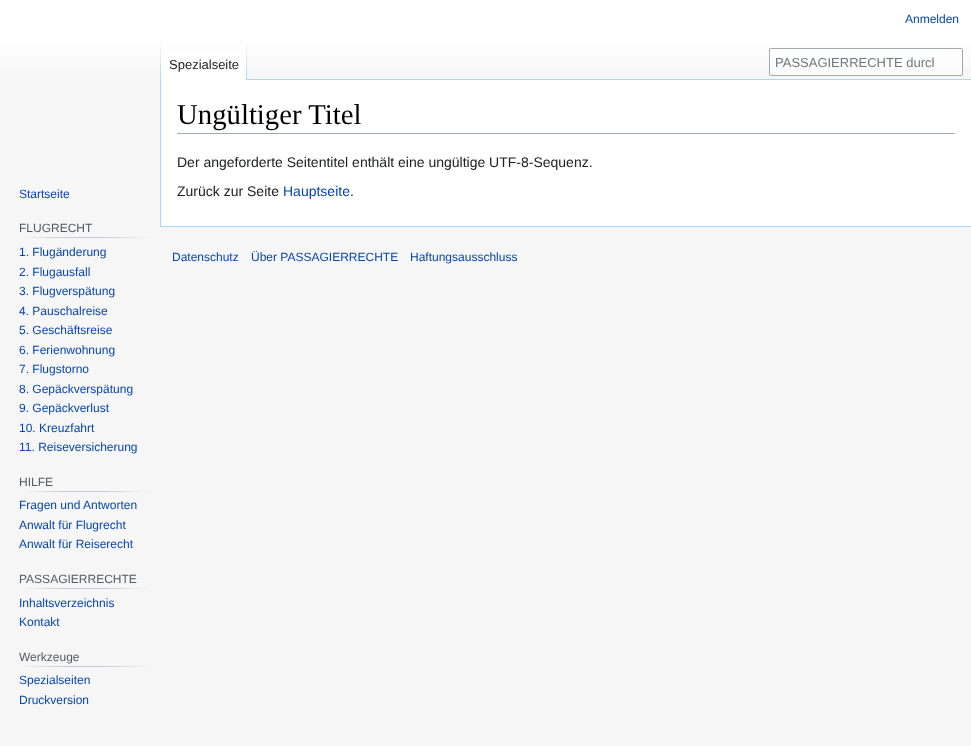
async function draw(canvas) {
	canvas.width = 971;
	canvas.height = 746;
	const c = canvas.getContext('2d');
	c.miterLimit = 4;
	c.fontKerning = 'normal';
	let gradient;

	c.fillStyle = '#f6f6f6';
	c.fillRect(0, 0, 971, 746);
	gradient = c.createLinearGradient(486, 0, 486, 80);
	gradient.addColorStop(0.5, '#fff');
	gradient.addColorStop(1, '#f6f6f6');
	c.fillStyle = gradient;
	c.fillRect(0, 0, 971, 69);
	c.font = '12px Liberation Sans';
	c.fillStyle = '#0645ad';
	c.fillText('Anmelden', 905, 23);
	c.fillStyle = '#a7d7f9';
	c.fillRect(160, 226, 811, 1);
	c.fillRect(160, 79, 1, 148);
	gradient = c.createLinearGradient(161, 40, 161, 80);
	gradient.addColorStop(0, '#a7d7f900');
	gradient.addColorStop(1, '#a7d7f9');
	c.fillStyle = gradient;
	c.fillRect(160, 40, 1, 40);
	c.fillStyle = '#fff';
	c.fillRect(161, 51, 85, 29);
	gradient = c.createLinearGradient(247, 40, 247, 80);
	gradient.addColorStop(0, '#fff');
	gradient.addColorStop(1, '#a7d7f9');
	c.fillStyle = gradient;
	c.fillRect(246, 40, 1, 40);
	c.font = '13px Liberation Sans';
	c.fillStyle = '#202122';
	c.fillText('Spezialseite', 169, 69);
	c.fillStyle = '#ffffff80';
	c.beginPath();
	c.roundRect(769.5, 48.5, 193, 27, 1.5);
	c.fill();
	c.strokeStyle = '#a2a9b1';
	c.stroke();
	c.save();
	c.beginPath();
	c.rect(775, 55, 159, 15);
	c.clip();
	c.fillStyle = '#72777d';
	c.fillText('PASSAGIERRECHTE durch', 775, 67);
	c.restore();
	c.font = '12px Liberation Sans';
	c.fillStyle = '#0645ad';
	c.fillText('Startseite', 19, 198);
	gradient = c.createLinearGradient(19, 238, 150, 238);
	gradient.addColorStop(0, '#f6f6f6');
	gradient.addColorStop(0.33, '#c8ccd1');
	gradient.addColorStop(0.66, '#c8ccd1');
	gradient.addColorStop(1, '#f6f6f6');
	c.fillStyle = gradient;
	c.fillRect(19, 237, 131, 1);
	c.fillStyle = '#54595d';
	c.fillText('FLUGRECHT', 19, 232);
	c.fillStyle = '#0645ad';
	for (const [text, x, y] of [
		['1. Flugänderung', 19, 256],
		['2. Flugausfall', 19, 276],
		['3. Flugverspätung', 19, 295],
		['4. Pauschalreise', 19, 315],
		['5. Geschäftsreise', 19, 334],
		['6. Ferienwohnung', 19, 354],
		['7. Flugstorno', 19, 373],
		['8. Gepäckverspätung', 19, 393],
		['9. Gepäckverlust', 19, 412],
		['10. Kreuzfahrt', 19, 432],
		['11. Reiseversicherung', 19, 451],
	]) {
		c.fillText(text, x, y);
	}
	gradient = c.createLinearGradient(19, 492, 150, 492);
	gradient.addColorStop(0, '#f6f6f6');
	gradient.addColorStop(0.33, '#c8ccd1');
	gradient.addColorStop(0.66, '#c8ccd1');
	gradient.addColorStop(1, '#f6f6f6');
	c.fillStyle = gradient;
	c.fillRect(19, 491, 131, 1);
	c.fillStyle = '#54595d';
	c.fillText('HILFE', 19, 486);
	c.fillStyle = '#0645ad';
	for (const [text, x, y] of [
		['Fragen und Antworten', 19, 509],
		['Anwalt für Flugrecht', 19, 529],
		['Anwalt für Reiserecht', 19, 548],
	]) {
		c.fillText(text, x, y);
	}
	gradient = c.createLinearGradient(19, 589, 150, 589);
	gradient.addColorStop(0, '#f6f6f6');
	gradient.addColorStop(0.33, '#c8ccd1');
	gradient.addColorStop(0.66, '#c8ccd1');
	gradient.addColorStop(1, '#f6f6f6');
	c.fillStyle = gradient;
	c.fillRect(19, 588, 131, 1);
	c.fillStyle = '#54595d';
	c.fillText('PASSAGIERRECHTE', 19, 583);
	c.fillStyle = '#0645ad';
	c.fillText('Inhaltsverzeichnis', 19, 607);
	c.fillText('Kontakt', 19, 626);
	gradient = c.createLinearGradient(19, 667, 150, 667);
	gradient.addColorStop(0, '#f6f6f6');
	gradient.addColorStop(0.33, '#c8ccd1');
	gradient.addColorStop(0.66, '#c8ccd1');
	gradient.addColorStop(1, '#f6f6f6');
	c.fillStyle = gradient;
	c.fillRect(19, 666, 131, 1);
	c.fillStyle = '#54595d';
	c.fillText('Werkzeuge', 19, 661);
	c.fillStyle = '#0645ad';
	c.fillText('Spezialseiten', 19, 684);
	c.fillText('Druckversion', 19, 704);
	for (const [x, y, w, h, color] of [
		[161, 80, 810, 146, '#fff'],
		[247, 79, 724, 1, '#a7d7f9'],
		[177, 133, 778, 1, '#a2a9b1'],
	]) {
		c.fillStyle = color;
		c.fillRect(x, y, w, h);
	}
	c.font = '28.75px Liberation Serif';
	c.fillStyle = '#000';
	c.fillText('Ungültiger Titel', 177, 124);
	c.font = '14px Liberation Sans';
	c.fillStyle = '#202122';
	c.fillText('Der angeforderte Seitentitel enthält eine ungültige UTF-8-Sequenz.', 177, 167);
	c.fillText('Zurück zur Seite', 177, 196);
	c.fillStyle = '#0645ad';
	c.fillText('Hauptseite', 283, 196);
	c.fillStyle = '#202122';
	c.fillText('.', 350, 196);
	c.font = '12px Liberation Sans';
	c.fillStyle = '#0645ad';
	for (const [text, x, y] of [
		['Datenschutz', 172, 261],
		['Über PASSAGIERRECHTE', 251, 261],
		['Haftungsausschluss', 410, 261],
	]) {
		c.fillText(text, x, y);
	}
}

draw(document.querySelector('canvas'));
